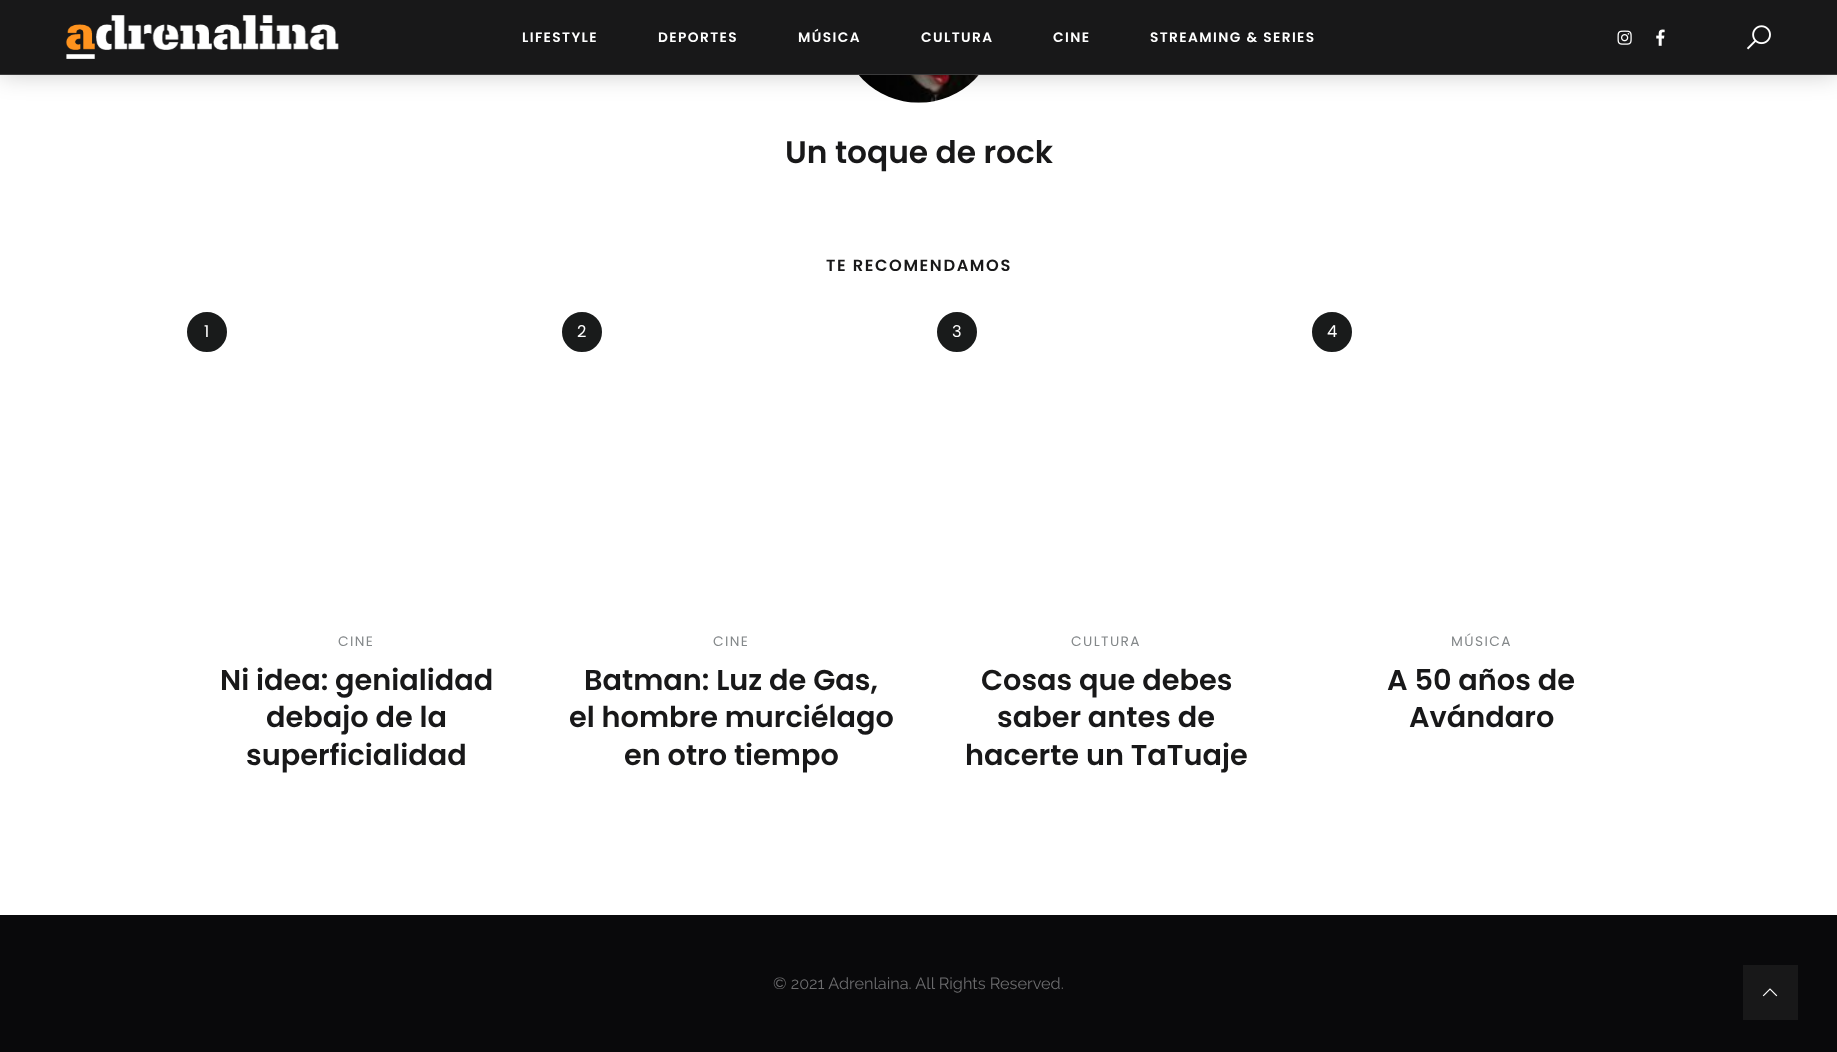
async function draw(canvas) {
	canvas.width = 1837;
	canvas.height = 1052;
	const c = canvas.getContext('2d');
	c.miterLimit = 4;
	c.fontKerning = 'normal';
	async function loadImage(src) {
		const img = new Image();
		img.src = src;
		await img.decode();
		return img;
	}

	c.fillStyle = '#fff';
	c.fillRect(0, 0, 1837, 1052);
	c.drawImage(await loadImage('img5.png'), 859, 75, 120, 28);
	c.fillStyle = '#00000033';
	c.filter = 'blur(12.5px)';
	c.beginPath();
	c.rect(0, 0, 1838, 75);
	c.fill();
	c.filter = 'none';
	c.fillStyle = '#181819';
	c.fillRect(0, 0, 1837, 74);
	c.fillStyle = '#3b3b3c';
	c.fillRect(0, 74, 1837, 1);
	c.drawImage(await loadImage('img1.png'), 66, 15, 273, 44);
	c.letterSpacing = '1.4px';
	c.font = '600 13.75px Poppins';
	c.fillStyle = '#fff';
	for (const [text, x, y] of [
		['LIFESTYLE', 522, 42],
		['DEPORTES', 658, 42],
		['MÚSICA', 798, 42],
		['CULTURA', 921, 42],
		['CINE', 1053, 42],
		['STREAMING & SERIES', 1150, 42],
	]) {
		c.fillText(text, x, y);
	}
	c.drawImage(await loadImage('img2.png'), 1617, 30, 15, 15);
	c.drawImage(await loadImage('img3.png'), 1656, 29, 9, 17);
	c.drawImage(await loadImage('img4.png'), 1746, 25, 25, 25);
	c.letterSpacing = '0px';
	c.font = '600 31.25px Poppins';
	c.fillStyle = '#181819';
	c.fillText('Un toque de rock', 785, 163);
	c.letterSpacing = '1.6px';
	c.font = '600 16.25px Poppins';
	c.fillText('TE RECOMENDAMOS', 826, 271);
	c.fillStyle = '#191b1b';
	c.beginPath();
	c.arc(207, 332, 23, 0, 2 * Math.PI);
	c.fill();
	c.strokeStyle = '#fff';
	c.lineWidth = 6;
	c.stroke();
	c.letterSpacing = '0px';
	c.font = '16.25px Poppins';
	c.fillStyle = '#fff';
	c.fillText('1', 204, 337);
	c.letterSpacing = '1.4px';
	c.font = '13.75px Poppins';
	c.fillStyle = '#84888a';
	c.fillText('CINE', 338, 646);
	c.letterSpacing = '0px';
	c.font = '600 28.75px Poppins';
	c.fillStyle = '#181819';
	for (const [text, x, y] of [
		['Ni idea: genialidad', 220, 690],
		['debajo de la', 266, 727],
		['superficialidad', 246, 765],
	]) {
		c.fillText(text, x, y);
	}
	c.fillStyle = '#191b1b';
	c.beginPath();
	c.arc(582, 332, 23, 0, 2 * Math.PI);
	c.fill();
	c.stroke();
	c.font = '16.25px Poppins';
	c.fillStyle = '#fff';
	c.fillText('2', 577, 337);
	c.letterSpacing = '1.4px';
	c.font = '13.75px Poppins';
	c.fillStyle = '#84888a';
	c.fillText('CINE', 713, 646);
	c.letterSpacing = '0px';
	c.font = '600 28.75px Poppins';
	c.fillStyle = '#181819';
	for (const [text, x, y] of [
		['Batman: Luz de Gas,', 584, 690],
		['el hombre murciélago', 569, 727],
		['en otro tiempo', 624, 765],
	]) {
		c.fillText(text, x, y);
	}
	c.fillStyle = '#191b1b';
	c.beginPath();
	c.arc(957, 332, 23, 0, 2 * Math.PI);
	c.fill();
	c.stroke();
	c.font = '16.25px Poppins';
	c.fillStyle = '#fff';
	c.fillText('3', 952, 337);
	c.letterSpacing = '1.4px';
	c.font = '13.75px Poppins';
	c.fillStyle = '#84888a';
	c.fillText('CULTURA', 1071, 646);
	c.letterSpacing = '0px';
	c.font = '600 28.75px Poppins';
	c.fillStyle = '#181819';
	for (const [text, x, y] of [
		['Cosas que debes', 981, 690],
		['saber antes de', 997, 727],
		['hacerte un TaTuaje', 965, 765],
	]) {
		c.fillText(text, x, y);
	}
	c.fillStyle = '#191b1b';
	c.beginPath();
	c.arc(1332, 332, 23, 0, 2 * Math.PI);
	c.fill();
	c.stroke();
	c.font = '16.25px Poppins';
	c.fillStyle = '#fff';
	c.fillText('4', 1327, 337);
	c.letterSpacing = '1.4px';
	c.font = '13.75px Poppins';
	c.fillStyle = '#84888a';
	c.fillText('MÚSICA', 1451, 646);
	c.letterSpacing = '0px';
	c.font = '600 28.75px Poppins';
	c.fillStyle = '#181819';
	c.fillText('A 50 años de', 1387, 690);
	c.fillText('Avándaro', 1409, 727);
	c.fillStyle = '#09090b';
	c.fillRect(0, 915, 1837, 137);
	c.font = '16.25px Raleway';
	c.fillStyle = '#6d6d6f';
	c.fillText('© 2021 Adrenlaina. All Rights Reserved.', 773, 989);
	c.fillStyle = '#181819';
	c.fillRect(1743, 965, 55, 55);
	c.drawImage(await loadImage('img6.png'), 1762, 988, 16, 9);
}

draw(document.querySelector('canvas'));
